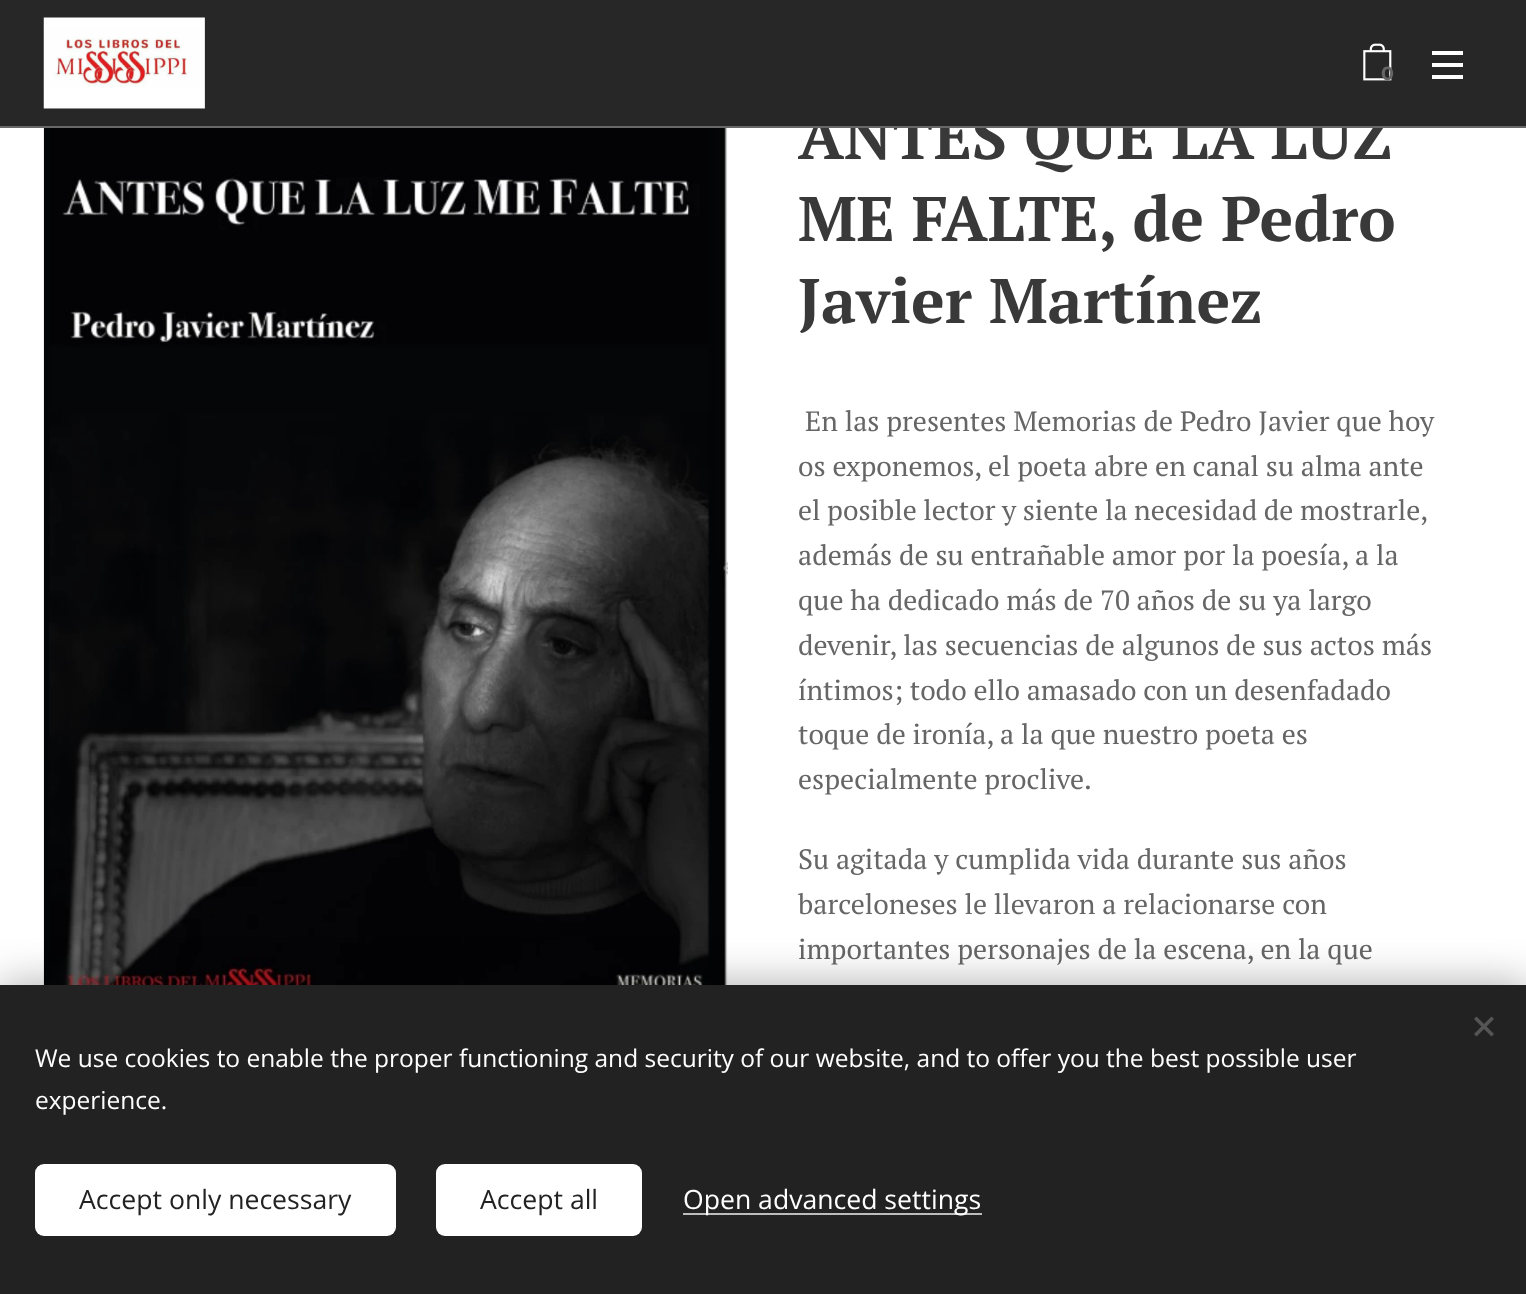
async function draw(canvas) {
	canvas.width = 1526;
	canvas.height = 1294;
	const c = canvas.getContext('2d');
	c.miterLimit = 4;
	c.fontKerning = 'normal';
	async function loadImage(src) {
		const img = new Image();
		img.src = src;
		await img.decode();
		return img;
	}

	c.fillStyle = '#fff';
	c.fillRect(0, 0, 1526, 1294);
	c.font = 'bold 63px PT Serif';
	c.fillStyle = '#393939';
	c.fillText('ANTES QUE LA LUZ', 798, 159);
	c.fillStyle = '#272727';
	c.fillRect(0, 0, 1526, 126);
	c.fillStyle = '#686868';
	c.fillRect(0, 126, 1526, 2);
	c.drawImage(await loadImage('img1.png'), 43, 17, 162, 92);
	c.drawImage(await loadImage('img2.png'), 1363, 43, 29, 38);
	c.font = 'bold 19px Montserrat';
	c.fillStyle = '#666';
	c.fillText('0', 1381, 80);
	for (const [x, y, w, h, color] of [
		[1432, 63, 31, 4, '#fff'],
		[1432, 51, 31, 4, '#fff'],
		[1432, 75, 31, 4, '#fff'],
	]) {
		c.fillStyle = color;
		c.fillRect(x, y, w, h);
	}
	c.drawImage(await loadImage('img3.png'), 43, 128, 685, 857);
	c.font = 'bold 63px PT Serif';
	c.fillStyle = '#393939';
	c.fillText('ME FALTE, de Pedro', 798, 241);
	c.fillText('Javier Martínez', 798, 323);
	c.font = '28px PT Serif';
	c.fillStyle = '#666';
	c.fillText('En las presentes Memorias de Pedro Javier que hoy', 805, 431);
	c.fillText('os exponemos, el poeta abre en canal su alma ante', 798, 476);
	c.wordSpacing = '-0.25px';
	c.fillText('el posible lector y siente la necesidad de mostrarle,', 798, 520);
	c.wordSpacing = '0px';
	for (const [text, x, y] of [
		['además de su entrañable amor por la poesía, a la', 798, 565],
		['que ha dedicado más de 70 años de su ya largo', 798, 610],
		['devenir, las secuencias de algunos de sus actos más', 798, 655],
		['íntimos; todo ello amasado con un desenfadado', 798, 700],
		['toque de ironía, a la que nuestro poeta es', 798, 744],
		['especialmente proclive.', 798, 789],
		['Su agitada y cumplida vida durante sus años', 798, 869],
		['barceloneses le llevaron a relacionarse con', 798, 914],
		['importantes personajes de la escena, en la que', 798, 959],
	]) {
		c.fillText(text, x, y);
	}
	c.fillStyle = '#00000054';
	c.filter = 'blur(22px)';
	c.beginPath();
	c.rect(0, 985, 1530, 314);
	c.fill();
	c.filter = 'none';
	c.fillStyle = '#222';
	c.fillRect(0, 985, 1526, 309);
	c.fillStyle = '#555';
	c.beginPath();
	c.moveTo(1474, 1034);
	c.lineTo(1491.5, 1016.5);
	c.lineTo(1494, 1019);
	c.lineTo(1476.5, 1036.5);
	c.closePath();
	c.fill();
	c.beginPath();
	c.moveTo(1476.5, 1016.5);
	c.lineTo(1494, 1034);
	c.lineTo(1491.5, 1036.5);
	c.lineTo(1474, 1019);
	c.closePath();
	c.fill();
	c.font = '24.5px Open Sans';
	c.fillStyle = '#fff';
	c.fillText('We use cookies to enable the proper functioning and security of our website, and to offer you the best possible user', 35, 1067);
	c.fillText('experience.', 35, 1109);
	c.beginPath();
	c.roundRect(35, 1164, 361, 72, 9);
	c.fill();
	c.font = '26.6px Open Sans';
	c.fillStyle = '#222';
	c.fillText('Accept only necessary', 79, 1209);
	c.fillStyle = '#fff';
	c.beginPath();
	c.roundRect(436, 1164, 206, 72, 9);
	c.fill();
	c.fillStyle = '#222';
	c.fillText('Accept all', 480, 1209);
	c.fillStyle = '#bdbdbd';
	c.fillRect(683, 1213, 299, 2);
	c.fillStyle = '#fff';
	c.fillText('Open advanced settings', 683, 1209);
}

draw(document.querySelector('canvas'));
